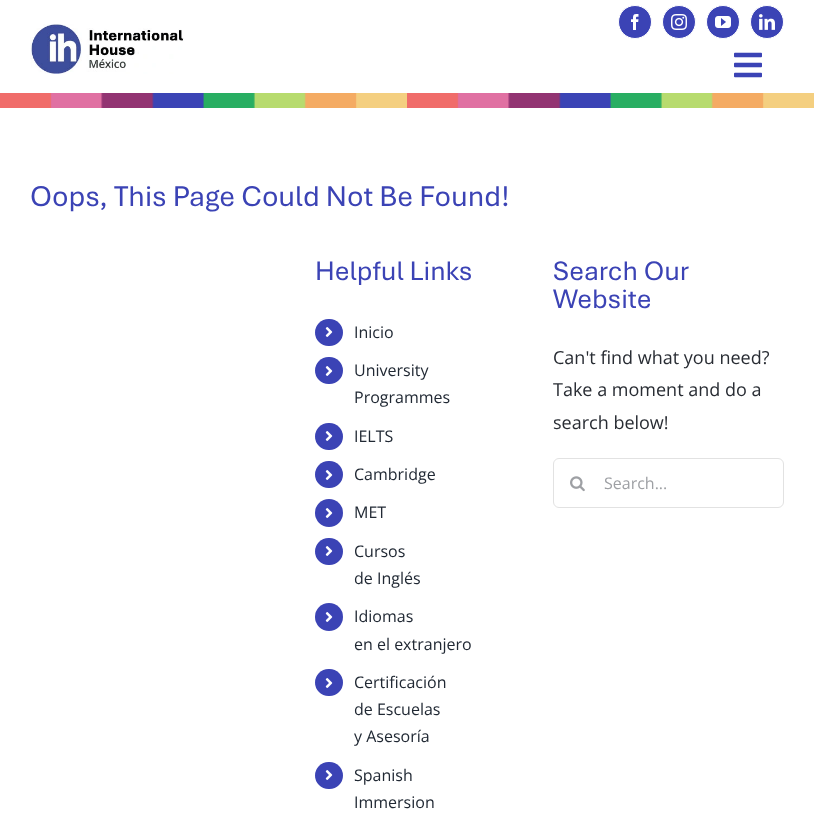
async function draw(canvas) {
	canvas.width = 814;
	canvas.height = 819;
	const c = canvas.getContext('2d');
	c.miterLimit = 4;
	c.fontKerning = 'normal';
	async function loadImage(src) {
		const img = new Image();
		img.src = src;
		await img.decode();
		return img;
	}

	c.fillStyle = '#fff';
	c.fillRect(0, 0, 814, 819);
	c.drawImage(await loadImage('img1.png'), 30, 24, 154, 50);
	c.fillStyle = '#3b43b5';
	c.beginPath();
	c.arc(635, 22, 16.5, 0, 2 * Math.PI);
	c.fill();
	c.strokeStyle = '#fff';
	c.stroke();
	c.drawImage(await loadImage('img2.png'), 631, 14, 8, 16);
	c.beginPath();
	c.arc(679, 22, 16.5, 0, 2 * Math.PI);
	c.fill();
	c.stroke();
	c.drawImage(await loadImage('img3.png'), 671, 14, 16, 16);
	c.beginPath();
	c.arc(723, 22, 16.5, 0, 2 * Math.PI);
	c.fill();
	c.stroke();
	c.drawImage(await loadImage('img4.png'), 715, 16, 16, 12);
	c.beginPath();
	c.arc(767, 22, 16.5, 0, 2 * Math.PI);
	c.fill();
	c.stroke();
	c.drawImage(await loadImage('img5.png'), 759, 14, 16, 16);
	c.drawImage(await loadImage('img6.png'), 734, 52, 28, 26);
	c.drawImage(await loadImage('img7.png'), 0, 93, 814, 15);
	c.font = '30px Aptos';
	c.fillText('Oops, This Page Could Not Be Found!', 30, 206);
	c.font = '28px Aptos';
	c.fillText('Helpful Links', 315, 280);
	c.beginPath();
	c.roundRect(315, 319, 28, 27, 13.5);
	c.fill();
	c.drawImage(await loadImage('img8.png'), 325, 327, 8, 10);
	c.font = '16px Open Sans';
	c.fillStyle = '#212934';
	c.fillText('Inicio', 354, 338);
	c.fillStyle = '#3b43b5';
	c.beginPath();
	c.roundRect(315, 357, 28, 27, 13.5);
	c.fill();
	c.drawImage(await loadImage('img8.png'), 325, 366, 8, 10);
	c.fillStyle = '#212934';
	c.fillText('University', 354, 376);
	c.fillText('Programmes', 354, 403);
	c.fillStyle = '#3b43b5';
	c.beginPath();
	c.roundRect(315, 423, 28, 27, 13.5);
	c.fill();
	c.drawImage(await loadImage('img8.png'), 325, 431, 8, 10);
	c.fillStyle = '#212934';
	c.fillText('IELTS', 354, 442);
	c.fillStyle = '#3b43b5';
	c.beginPath();
	c.roundRect(315, 461, 28, 27, 13.5);
	c.fill();
	c.drawImage(await loadImage('img8.png'), 325, 470, 8, 10);
	c.fillStyle = '#212934';
	c.fillText('Cambridge', 354, 480);
	c.fillStyle = '#3b43b5';
	c.beginPath();
	c.arc(329, 513, 14, 0, 2 * Math.PI);
	c.fill();
	c.drawImage(await loadImage('img8.png'), 325, 508, 8, 10);
	c.fillStyle = '#212934';
	c.fillText('MET', 354, 518);
	c.fillStyle = '#3b43b5';
	c.beginPath();
	c.roundRect(315, 538, 28, 27, 13.5);
	c.fill();
	c.drawImage(await loadImage('img8.png'), 325, 546, 8, 10);
	c.fillStyle = '#212934';
	c.fillText('Cursos', 354, 557);
	c.fillText('de Inglés', 354, 584);
	c.fillStyle = '#3b43b5';
	c.beginPath();
	c.arc(329, 617, 14, 0, 2 * Math.PI);
	c.fill();
	c.drawImage(await loadImage('img8.png'), 325, 612, 8, 10);
	c.fillStyle = '#212934';
	c.fillText('Idiomas', 354, 622);
	c.fillText('en el extranjero', 354, 650);
	c.fillStyle = '#3b43b5';
	c.beginPath();
	c.roundRect(315, 669, 28, 27, 13.5);
	c.fill();
	c.drawImage(await loadImage('img8.png'), 325, 678, 8, 10);
	c.fillStyle = '#212934';
	for (const [text, x, y] of [
		['Certificación', 354, 688],
		['de Escuelas', 354, 715],
		['y Asesoría', 354, 742],
	]) {
		c.fillText(text, x, y);
	}
	c.fillStyle = '#3b43b5';
	c.beginPath();
	c.roundRect(315, 762, 28, 27, 13.5);
	c.fill();
	c.drawImage(await loadImage('img8.png'), 325, 770, 8, 10);
	c.fillStyle = '#212934';
	c.fillText('Spanish', 354, 781);
	c.fillText('Immersion', 354, 808);
	c.font = '28px Aptos';
	c.fillStyle = '#3b43b5';
	c.fillText('Search Our', 553, 280);
	c.fillText('Website', 553, 308);
	c.font = '18px Open Sans';
	c.fillStyle = '#282c33';
	for (const [text, x, y] of [
		['Can\'t find what you need?', 553, 364],
		['Take a moment and do a', 553, 396],
		['search below!', 553, 429],
	]) {
		c.fillText(text, x, y);
	}
	c.beginPath();
	c.roundRect(553.5, 458.5, 230, 49, 5.5);
	c.strokeStyle = '#e2e2e2';
	c.stroke();
	c.drawImage(await loadImage('img9.png'), 570, 476, 15, 16);
	c.font = '16px Open Sans';
	c.fillStyle = '#9ea0a4';
	c.fillText('Search...', 604, 489);
}

draw(document.querySelector('canvas'));
